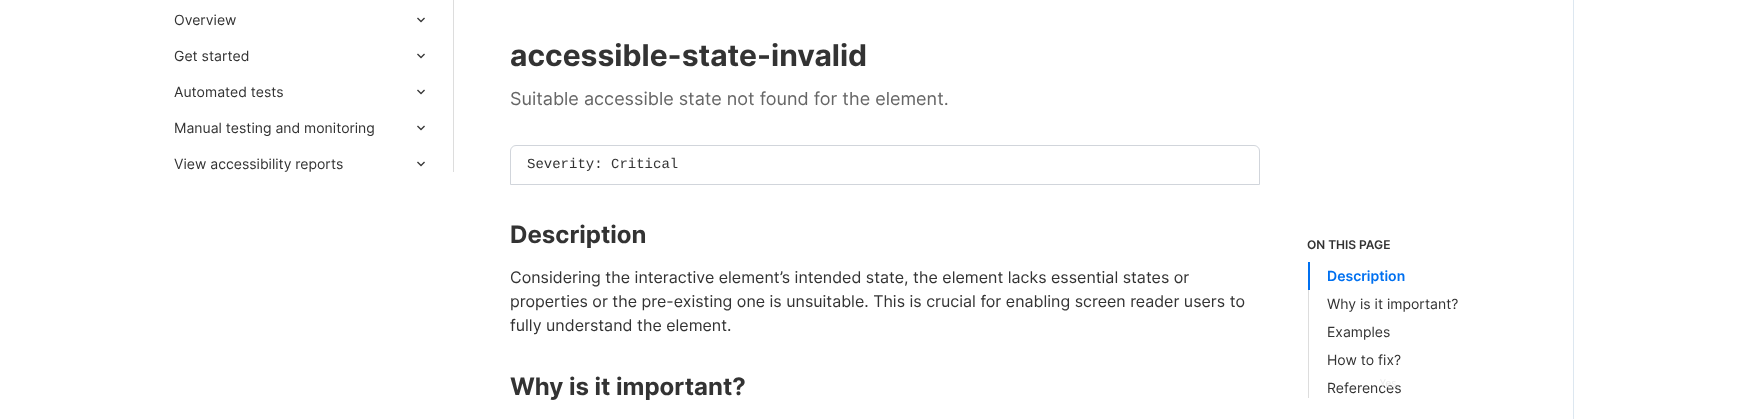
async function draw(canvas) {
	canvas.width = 1747;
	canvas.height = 419;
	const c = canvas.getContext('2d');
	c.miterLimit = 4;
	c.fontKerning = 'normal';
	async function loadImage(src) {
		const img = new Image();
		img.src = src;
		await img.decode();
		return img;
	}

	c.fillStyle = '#fff';
	c.fillRect(0, 0, 1747, 419);
	c.fillStyle = '#ddd';
	c.fillRect(453, 0, 1, 172);
	c.font = '14px Inter';
	c.fillStyle = '#333';
	c.fillText('Overview', 174, 25);
	c.drawImage(await loadImage('img1.png'), 417, 17, 8, 6);
	c.fillText('Get started', 174, 61);
	c.drawImage(await loadImage('img1.png'), 417, 53, 8, 6);
	c.fillText('Automated tests', 174, 97);
	c.drawImage(await loadImage('img1.png'), 417, 89, 8, 6);
	c.fillText('Manual testing and monitoring', 174, 133);
	c.drawImage(await loadImage('img1.png'), 417, 125, 8, 6);
	c.fillText('View accessibility reports', 174, 169);
	c.drawImage(await loadImage('img1.png'), 417, 161, 8, 6);
	c.font = 'bold 30px Inter';
	c.fillText('accessible-state-invalid', 510, 66);
	c.font = '18px Inter';
	c.fillStyle = '#666';
	c.fillText('Suitable accessible state not found for the element.', 510, 105);
	c.beginPath();
	c.roundRect(510.5, 145.5, 749, 39, [5.5, 5.5, 0, 0]);
	c.strokeStyle = '#d1d5db';
	c.stroke();
	c.font = '14px Liberation Mono';
	c.fillStyle = '#333';
	c.fillText('Severity: Critical', 527, 168);
	c.font = 'bold 24px Inter';
	c.fillText('Description', 510, 243);
	c.font = '16px Inter';
	for (const [text, x, y] of [
		['Considering the interactive element’s intended state, the element lacks essential states or', 510, 283],
		['properties or the pre-existing one is unsuitable. This is crucial for enabling screen reader users to', 510, 307],
		['fully understand the element.', 510, 331],
	]) {
		c.fillText(text, x, y);
	}
	c.font = 'bold 24px Inter';
	c.fillText('Why is it important?', 510, 395);
	c.font = '600 12px Inter';
	c.fillText('ON THIS PAGE', 1307, 249);
	c.fillStyle = '#0070f0';
	c.fillRect(1308, 262, 2, 28);
	c.font = '600 14px Inter';
	c.fillText('Description', 1327, 281);
	c.fillStyle = '#ddd';
	c.fillRect(1308, 290, 1, 108);
	c.font = '14px Inter';
	c.fillStyle = '#333';
	for (const [text, x, y] of [
		['Why is it important?', 1327, 309],
		['Examples', 1327, 337],
		['How to fix?', 1327, 365],
		['References', 1327, 393],
	]) {
		c.fillText(text, x, y);
	}
	c.font = '12px Source Sans Pro';
	c.fillStyle = '#ececec';
	c.fillText('Yes', 1380, 387);
	c.fillStyle = '#dde7f0';
	c.fillRect(1573, 0, 1, 419);
}

draw(document.querySelector('canvas'));
